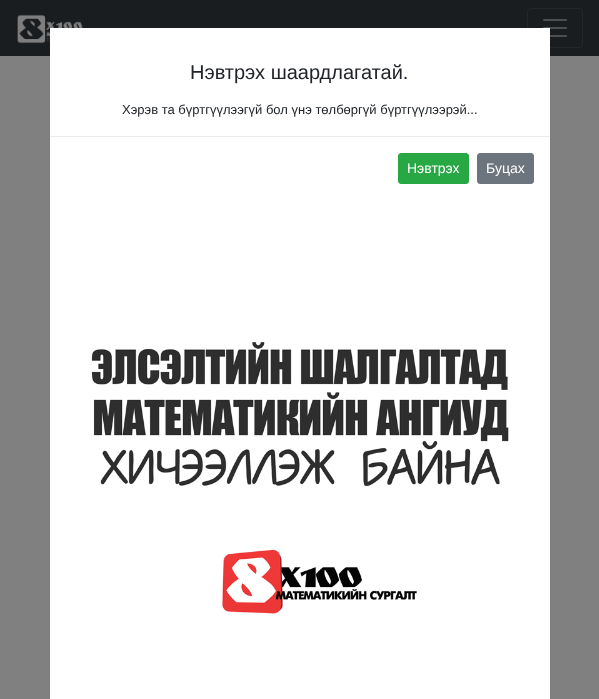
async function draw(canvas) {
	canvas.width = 599;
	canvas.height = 699;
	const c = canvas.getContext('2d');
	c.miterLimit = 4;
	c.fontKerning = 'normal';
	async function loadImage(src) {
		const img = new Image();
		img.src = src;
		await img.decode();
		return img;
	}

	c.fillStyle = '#808080';
	c.fillRect(0, 0, 599, 699);
	c.fillStyle = '#1a1d20';
	c.fillRect(0, 0, 599, 56);
	c.drawImage(await loadImage('img1.png'), 17, 14, 66, 30);
	c.beginPath();
	c.roundRect(527.5, 8.5, 55, 39, 3.5);
	c.strokeStyle = '#24272a';
	c.stroke();
	c.drawImage(await loadImage('img2.png'), 543, 19, 24, 18);
	c.fillStyle = '#fff';
	c.fillRect(50, 28, 500, 671);
	c.font = '20px Liberation Sans';
	c.fillStyle = '#212529';
	c.fillText('Нэвтрэх шаардлагатай.', 190, 79);
	c.font = '13px Liberation Sans';
	c.fillText('Хэрэв та бүртгүүлээгүй бол үнэ төлбөргүй бүртгүүлээрэй...', 122, 114);
	c.fillStyle = '#e9ecef';
	c.fillRect(50, 136, 500, 1);
	c.fillStyle = '#28a745';
	c.beginPath();
	c.roundRect(398.5, 153.5, 70, 30, 2.5);
	c.fill();
	c.strokeStyle = '#28a745';
	c.stroke();
	c.font = '14px Liberation Sans';
	c.fillStyle = '#fff';
	c.fillText('Нэвтрэх', 407, 173);
	c.fillStyle = '#6c757d';
	c.beginPath();
	c.roundRect(477.5, 153.5, 56, 30, 2.5);
	c.fill();
	c.strokeStyle = '#6c757d';
	c.stroke();
	c.fillStyle = '#fff';
	c.fillText('Буцах', 486, 173);
	c.drawImage(await loadImage('img3.png'), 91, 342, 418, 272);
}

draw(document.querySelector('canvas'));
